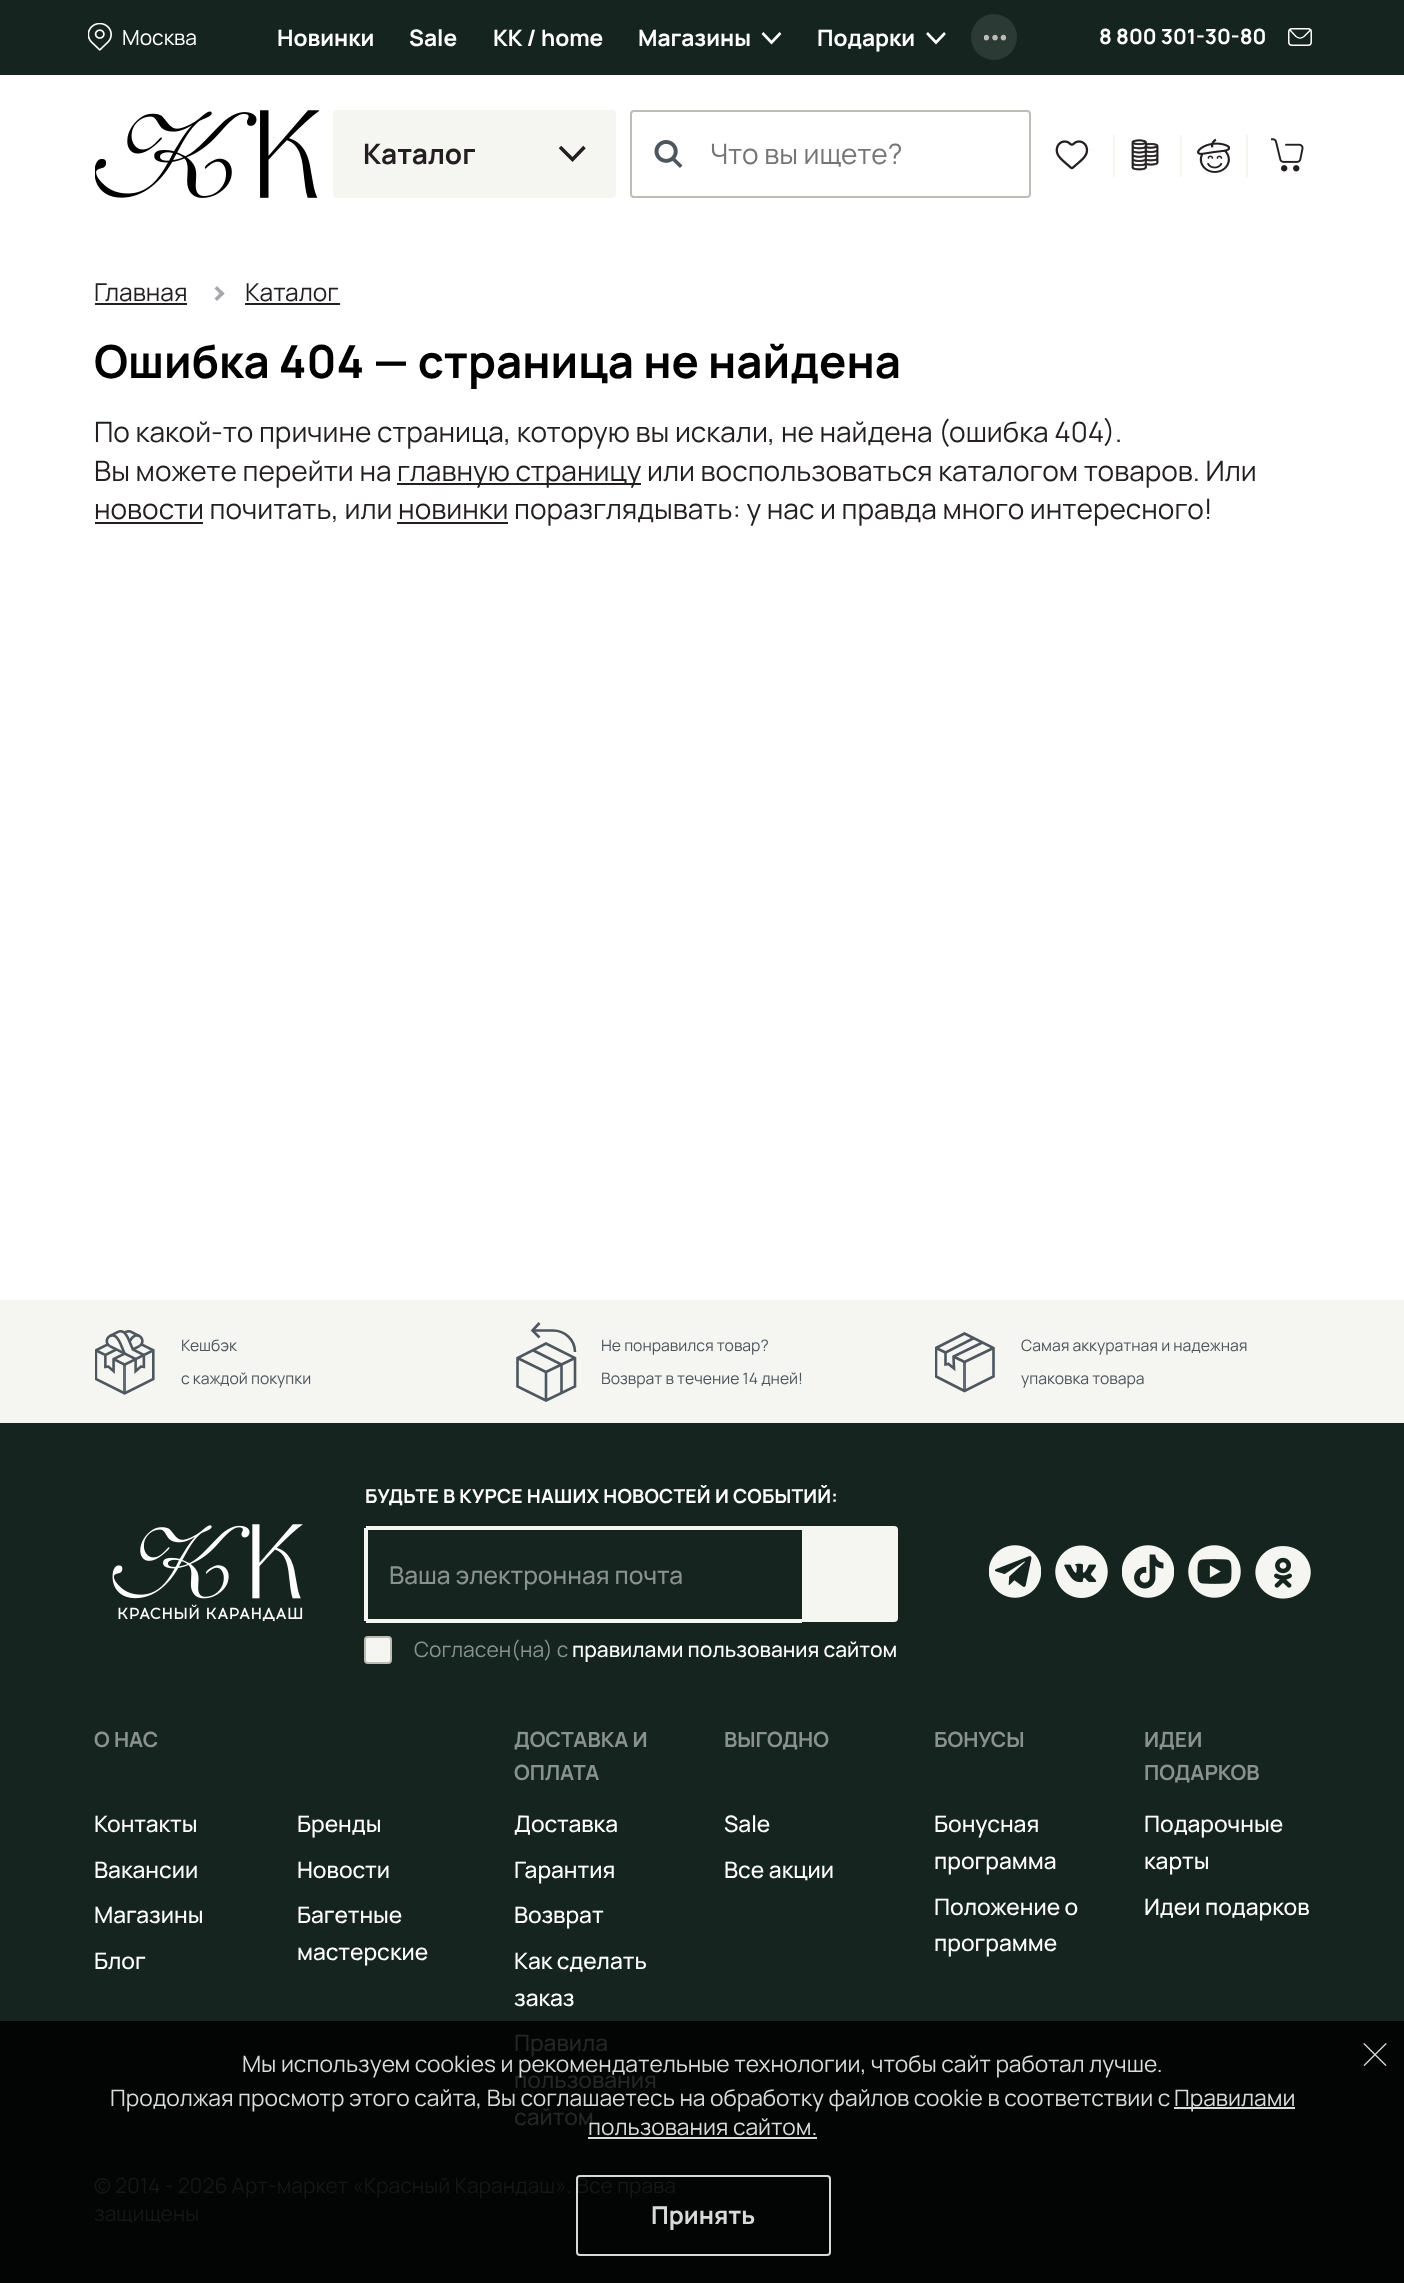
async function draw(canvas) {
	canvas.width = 1404;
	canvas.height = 2283;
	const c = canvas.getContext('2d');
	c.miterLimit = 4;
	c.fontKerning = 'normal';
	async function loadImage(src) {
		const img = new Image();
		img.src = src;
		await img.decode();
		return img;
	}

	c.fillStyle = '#fff';
	c.fillRect(0, 0, 1404, 2283);
	c.fillStyle = '#15241f';
	c.fillRect(0, 0, 1404, 75);
	c.drawImage(await loadImage('img1.png'), 88, 23, 24, 28);
	c.font = '21px Manrope';
	c.fillStyle = '#fff';
	c.fillText('Москва', 122, 45);
	c.font = 'bold 22.75px Manrope';
	for (const [text, x, y] of [
		['Новинки', 277, 46],
		['Sale', 409, 46],
		['КК / home', 493, 46],
		['Магазины', 638, 46],
	]) {
		c.fillText(text, x, y);
	}
	c.beginPath();
	c.moveTo(780.5, 33);
	c.lineTo(771.5, 42.5);
	c.lineTo(762.5, 33);
	c.strokeStyle = '#fff';
	c.lineWidth = 2.6;
	c.stroke();
	c.fillText('Подарки', 817, 46);
	c.beginPath();
	c.moveTo(945, 33);
	c.lineTo(936, 42.5);
	c.lineTo(927, 33);
	c.stroke();
	c.fillStyle = '#2c3a35';
	c.beginPath();
	c.arc(994, 37, 23, 0, 2 * Math.PI);
	c.fill();
	c.drawImage(await loadImage('img2.png'), 984, 34, 22, 7);
	c.font = 'bold 21px Manrope';
	c.fillStyle = '#fff';
	c.fillText('8 800 301-30-80', 1099, 44);
	c.beginPath();
	c.roundRect(1288.75, 28.75, 22.5, 16.5, 3.25);
	c.lineWidth = 1.5;
	c.stroke();
	c.beginPath();
	c.moveTo(1289.5, 29.5);
	c.lineTo(1296, 36.5);
	c.bezierCurveTo(1298.5, 38.5, 1301.5, 38.5, 1304, 36.5);
	c.lineTo(1311, 29.5);
	c.lineWidth = 1.4;
	c.stroke();
	c.drawImage(await loadImage('img3.png'), 95, 110, 224, 88);
	c.fillStyle = '#f5f5f2';
	c.beginPath();
	c.roundRect(334, 111, 281, 86, 3);
	c.fill();
	c.strokeStyle = '#f5f5f2';
	c.lineWidth = 2;
	c.stroke();
	c.font = 'bold 28px Manrope';
	c.fillStyle = '#231f20';
	c.fillText('Каталог', 363, 164);
	c.beginPath();
	c.moveTo(584.5, 147);
	c.lineTo(572.5, 159.5);
	c.lineTo(560, 147);
	c.strokeStyle = '#231f20';
	c.lineWidth = 3.5;
	c.stroke();
	c.beginPath();
	c.roundRect(631, 111, 399, 86, 3);
	c.strokeStyle = '#bdbdb5';
	c.lineWidth = 2;
	c.stroke();
	c.drawImage(await loadImage('img4.png'), 654, 140, 29, 28);
	c.font = '28px Manrope';
	c.fillStyle = '#757575';
	c.fillText('Что вы ищете?', 710, 164);
	c.drawImage(await loadImage('img5.png'), 1055, 140, 34, 30);
	c.fillStyle = '#f5f5f2';
	c.fillRect(1113, 135, 2, 42);
	c.drawImage(await loadImage('img6.png'), 1131, 139, 28, 32);
	c.fillRect(1180, 135, 2, 42);
	c.drawImage(await loadImage('img7.png'), 1197, 138, 33, 35);
	c.fillRect(1246, 135, 2, 42);
	c.drawImage(await loadImage('img8.png'), 1271, 138, 33, 34);
	c.font = '24.5px Manrope';
	c.fillStyle = '#231f20';
	c.fillText('Главная', 94, 301);
	c.fillRect(95, 303, 92, 2);
	c.fillStyle = '#a6a8ab';
	c.beginPath();
	c.moveTo(214.5, 288.5);
	c.lineTo(217, 286);
	c.lineTo(224.5, 293.5);
	c.lineTo(222, 296);
	c.closePath();
	c.fill();
	c.beginPath();
	c.moveTo(214.5, 298.5);
	c.lineTo(222, 291);
	c.lineTo(224.5, 293.5);
	c.lineTo(217, 301);
	c.closePath();
	c.fill();
	c.fillStyle = '#231f20';
	c.fillText('Каталог', 245, 301);
	c.fillRect(245, 303, 95, 2);
	c.font = 'bold 45.5px Manrope';
	c.fillStyle = '#000';
	c.fillText('Ошибка 404 — страница не найдена', 94, 378);
	c.font = '28px Manrope';
	c.fillStyle = '#231f20';
	c.fillText('По какой-то причине страница, которую вы искали, не найдена (ошибка 404).', 94, 442);
	c.fillText('Вы можете перейти на', 94, 481);
	c.fillRect(397, 483, 244, 2);
	c.fillText('главную страницу или воспользоваться каталогом товаров. Или', 397, 481);
	c.fillRect(95, 522, 108, 2);
	c.fillText('новости почитать, или новинки поразглядывать: у нас и правда много интересного!', 94, 519);
	c.fillRect(397, 522, 111, 2);
	c.fillStyle = '#f5f5f2';
	c.fillRect(0, 1300, 1404, 123);
	c.drawImage(await loadImage('img9.png'), 95, 1330, 60, 65);
	c.font = '15.75px Manrope';
	c.fillStyle = '#4e565d';
	c.fillText('Кешбэк', 181, 1351);
	c.fillText('с каждой покупки', 181, 1384);
	c.beginPath();
	c.moveTo(575, 1386.5);
	c.lineTo(575, 1358);
	c.lineTo(546, 1343.5);
	c.lineTo(517.5, 1358);
	c.lineTo(517.5, 1386.5);
	c.lineTo(546, 1400.5);
	c.closePath();
	c.moveTo(517.5, 1358);
	c.lineTo(546, 1372);
	c.lineTo(575, 1358);
	c.moveTo(546, 1372);
	c.lineTo(546, 1400.5);
	c.moveTo(561.5, 1393);
	c.lineTo(561.5, 1364.5);
	c.lineTo(532.5, 1350);
	c.strokeStyle = '#4e565e';
	c.lineWidth = 2.6;
	c.stroke();
	c.beginPath();
	c.moveTo(575, 1352);
	c.bezierCurveTo(575, 1340, 565, 1330.5, 553, 1330.5);
	c.lineTo(532.5, 1330.5);
	c.lineJoin = 'bevel';
	c.stroke();
	c.beginPath();
	c.moveTo(539.5, 1323);
	c.lineTo(532.5, 1330.5);
	c.lineTo(539.5, 1337.5);
	c.lineJoin = 'miter';
	c.stroke();
	c.fillText('Не понравился товар?', 601, 1351);
	c.fillText('Возврат в течение 14 дней!', 601, 1384);
	c.save();
	c.beginPath();
	c.rect(935, 1332, 61, 61);
	c.clip();
	c.beginPath();
	c.moveTo(993.5, 1376.5);
	c.lineTo(993.5, 1348);
	c.lineTo(964.5, 1333.5);
	c.lineTo(936, 1348);
	c.lineTo(936, 1376.5);
	c.lineTo(964.5, 1391);
	c.closePath();
	c.stroke();
	c.restore();
	c.beginPath();
	c.moveTo(953.5, 1356.5);
	c.lineTo(964.5, 1362);
	c.lineTo(993.5, 1348);
	c.moveTo(982.5, 1342.5);
	c.lineTo(953.5, 1356.5);
	c.lineTo(954, 1368.5);
	c.lineTo(948.5, 1364);
	c.lineTo(945.5, 1364.5);
	c.lineTo(945.5, 1352.5);
	c.lineTo(974, 1338);
	c.stroke();
	c.fillStyle = '#4e565ede';
	c.fillRect(963, 1362, 3, 29);
	c.beginPath();
	c.moveTo(945.5, 1352.5);
	c.lineTo(936, 1348);
	c.stroke();
	c.fillStyle = '#4e565d';
	c.fillText('Самая аккуратная и надежная', 1021, 1351);
	c.fillText('упаковка товара', 1021, 1384);
	c.fillStyle = '#15241f';
	c.fillRect(0, 1423, 1404, 598);
	c.fillStyle = '#030505';
	c.fillRect(0, 2021, 1404, 262);
	c.drawImage(await loadImage('img10.png'), 112, 1524, 191, 98);
	c.letterSpacing = '0.2px';
	c.font = 'bold 19.25px Manrope';
	c.fillStyle = '#fff';
	c.fillText('БУДЬТЕ В КУРСЕ НАШИХ НОВОСТЕЙ И СОБЫТИЙ:', 365, 1503);
	for (const [x, y, w, h, color] of [
		[366, 1526, 436, 4, '#f5f5f2'],
		[366, 1619, 436, 4, '#f5f5f2'],
		[364, 1528, 4, 93, '#f5f5f2'],
	]) {
		c.fillStyle = color;
		c.fillRect(x, y, w, h);
	}
	c.letterSpacing = '0px';
	c.font = '500 24.5px Manrope';
	c.fillStyle = '#8a928f';
	c.fillText('Ваша электронная почта', 389, 1584);
	c.fillStyle = '#f5f5f2';
	c.beginPath();
	c.roundRect(802, 1526, 96, 96, [0, 4, 4, 0]);
	c.fill();
	c.beginPath();
	c.roundRect(365, 1637, 26, 26, 3);
	c.fill();
	c.strokeStyle = '#bdbdb5';
	c.lineWidth = 2;
	c.stroke();
	c.font = '21px Manrope';
	c.fillStyle = '#8a928f';
	c.fillText('Согласен(на) с', 414, 1657);
	c.font = '500 21px Manrope';
	c.fillStyle = '#fff';
	c.fillText('правилами пользования сайтом', 572, 1657);
	c.drawImage(await loadImage('img11.png'), 989, 1545, 52, 53);
	c.drawImage(await loadImage('img12.png'), 1055, 1545, 53, 53);
	c.drawImage(await loadImage('img13.png'), 1122, 1545, 52, 53);
	c.drawImage(await loadImage('img14.png'), 1188, 1545, 53, 53);
	c.drawImage(await loadImage('img15.png'), 1255, 1546, 56, 53);
	c.font = 'bold 21px Manrope';
	c.fillStyle = '#8a928f';
	c.fillText('О НАС', 94, 1747);
	c.font = '500 22.75px Manrope';
	c.fillStyle = '#fff';
	for (const [text, x, y] of [
		['Контакты', 94, 1832],
		['Бренды', 297, 1832],
		['Вакансии', 94, 1878],
		['Новости', 297, 1878],
		['Магазины', 94, 1923],
		['Багетные', 297, 1923],
		['мастерские', 297, 1960],
		['Блог', 94, 1969],
	]) {
		c.fillText(text, x, y);
	}
	c.font = 'bold 21px Manrope';
	c.fillStyle = '#8a928f';
	c.fillText('ДОСТАВКА И', 514, 1747);
	c.fillText('ОПЛАТА', 514, 1780);
	c.font = '500 22.75px Manrope';
	c.fillStyle = '#fff';
	for (const [text, x, y] of [
		['Доставка', 514, 1832],
		['Гарантия', 514, 1878],
		['Возврат', 514, 1923],
		['Как сделать', 514, 1969],
		['заказ', 514, 2006],
	]) {
		c.fillText(text, x, y);
	}
	c.fillStyle = '#262626';
	for (const [text, x, y] of [
		['Правила', 514, 2051],
		['пользования', 514, 2088],
		['сайтом', 514, 2125],
	]) {
		c.fillText(text, x, y);
	}
	c.font = 'bold 21px Manrope';
	c.fillStyle = '#8a928f';
	c.fillText('ВЫГОДНО', 724, 1747);
	c.font = '500 22.75px Manrope';
	c.fillStyle = '#fff';
	c.fillText('Sale', 724, 1832);
	c.fillText('Все акции', 724, 1878);
	c.font = 'bold 21px Manrope';
	c.fillStyle = '#8a928f';
	c.fillText('БОНУСЫ', 934, 1747);
	c.font = '500 22.75px Manrope';
	c.fillStyle = '#fff';
	for (const [text, x, y] of [
		['Бонусная', 934, 1832],
		['программа', 934, 1869],
		['Положение о', 934, 1915],
		['программе', 934, 1951],
	]) {
		c.fillText(text, x, y);
	}
	c.font = 'bold 21px Manrope';
	c.fillStyle = '#8a928f';
	c.fillText('ИДЕИ', 1144, 1747);
	c.fillText('ПОДАРКОВ', 1144, 1780);
	c.font = '500 22.75px Manrope';
	c.fillStyle = '#fff';
	for (const [text, x, y] of [
		['Подарочные', 1144, 1832],
		['карты', 1144, 1869],
		['Идеи подарков', 1144, 1915],
	]) {
		c.fillText(text, x, y);
	}
	c.font = '21px Manrope';
	c.fillStyle = '#151615';
	c.fillText('© 2014 - 2026 Арт-маркет «Красный Карандаш». Все права', 94, 2193);
	c.fillText('защищены', 94, 2221);
	c.font = '22.75px Manrope';
	c.fillStyle = '#d9dad9';
	c.fillText('Мы используем cookies и рекомендательные технологии, чтобы сайт работал лучше.', 242, 2072);
	c.fillText('Продолжая просмотр этого сайта, Вы соглашаетесь на обработку файлов cookie в соответствии с', 110, 2106);
	c.fillStyle = '#dcdedd';
	c.fillRect(1174, 2107, 121, 2);
	c.fillStyle = '#d9dad9';
	c.fillText('Правилами', 1174, 2106);
	c.fillText('пользования сайтом.', 588, 2135);
	c.fillStyle = '#dcdedd';
	c.fillRect(588, 2137, 229, 2);
	c.beginPath();
	c.roundRect(577, 2176, 253, 79, 3);
	c.strokeStyle = '#ffffffd9';
	c.stroke();
	c.font = 'bold 24.5px Manrope';
	c.fillStyle = '#d9dad9';
	c.fillText('Принять', 651, 2224);
	c.drawImage(await loadImage('img16.png'), 1363, 2043, 24, 23);
}

draw(document.querySelector('canvas'));
